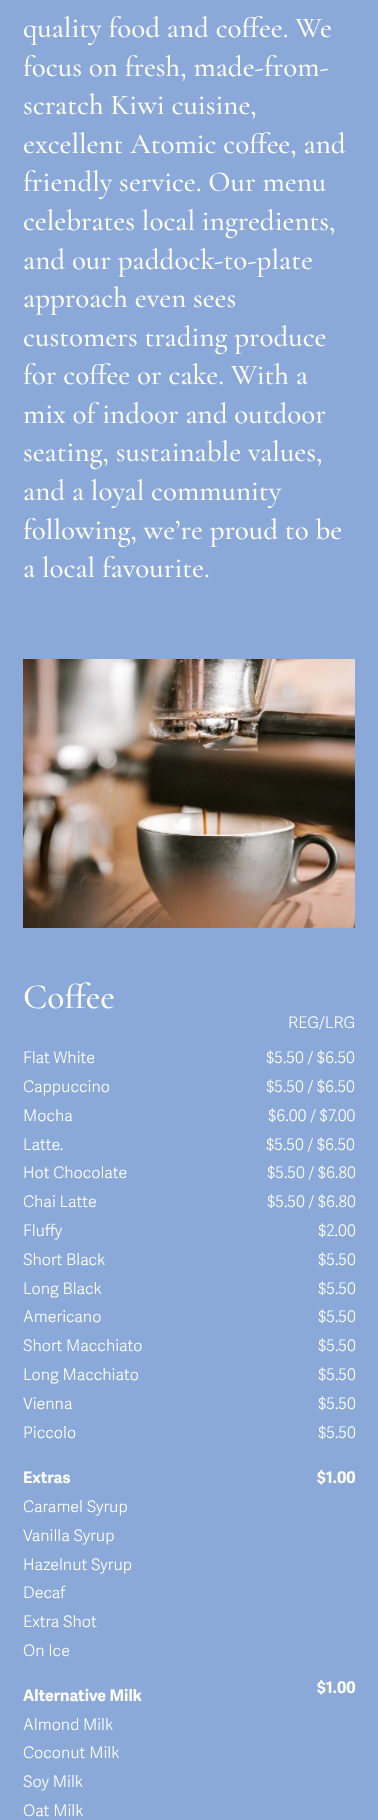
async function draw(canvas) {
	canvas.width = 378;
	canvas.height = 1820;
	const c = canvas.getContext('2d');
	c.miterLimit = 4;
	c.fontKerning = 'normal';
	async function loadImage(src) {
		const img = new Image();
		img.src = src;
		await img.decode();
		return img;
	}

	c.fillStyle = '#8aa9d8';
	c.fillRect(0, 0, 378, 1820);
	c.font = '500 29px Cormorant Garamond';
	c.fillStyle = '#fff';
	for (const [text, x, y] of [
		['quality food and coffee. We', 23, 37],
		['focus on fresh, made-from-', 23, 76],
		['scratch Kiwi cuisine,', 23, 114],
		['excellent Atomic coffee, and', 23, 153],
		['friendly service. Our menu', 23, 191],
		['celebrates local ingredients,', 23, 230],
		['and our paddock-to-plate', 23, 269],
		['approach even sees', 23, 307],
		['customers trading produce', 23, 346],
		['for coffee or cake. With a', 23, 384],
		['mix of indoor and outdoor', 23, 423],
		['seating, sustainable values,', 23, 461],
		['and a loyal community', 23, 500],
		['following, we’re proud to be', 23, 539],
		['a local favourite.', 23, 577],
	]) {
		c.fillText(text, x, y);
	}
	c.drawImage(await loadImage('img1.png'), 23, 659, 332, 269);
	c.font = '500 35.5px Cormorant Garamond';
	c.fillText('Coffee', 23, 1008);
	c.font = '300 16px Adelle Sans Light';
	for (const [text, x, y] of [
		['REG/LRG', 288, 1028],
		['Flat White', 23, 1063],
		['Cappuccino', 23, 1092],
		['Mocha', 23, 1121],
		['Latte.', 23, 1150],
		['Hot Chocolate', 23, 1178],
		['Chai Latte', 23, 1207],
		['Fluffy', 23, 1236],
		['Short Black', 23, 1265],
		['Long Black', 23, 1294],
		['Americano', 23, 1322],
		['Short Macchiato', 23, 1351],
		['Long Macchiato', 23, 1380],
		['Vienna', 23, 1409],
		['Piccolo', 23, 1438],
		['$5.50 / $6.50', 266, 1063],
		['$5.50 / $6.50', 266, 1092],
		['$6.00 / $7.00', 268, 1121],
		['$5.50 / $6.50', 266, 1150],
		['$5.50 / $6.80', 267, 1178],
		['$5.50 / $6.80', 267, 1207],
		['$2.00', 318, 1236],
		['$5.50', 318, 1265],
		['$5.50', 318, 1294],
		['$5.50', 318, 1322],
		['$5.50', 318, 1351],
		['$5.50', 318, 1380],
		['$5.50', 318, 1409],
		['$5.50', 318, 1438],
	]) {
		c.fillText(text, x, y);
	}
	c.font = 'bold 16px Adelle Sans';
	c.fillText('Extras', 23, 1483);
	c.font = '300 16px Adelle Sans Light';
	for (const [text, x, y] of [
		['Caramel Syrup', 23, 1512],
		['Vanilla Syrup', 23, 1541],
		['Hazelnut Syrup', 23, 1570],
		['Decaf', 23, 1598],
		['Extra Shot', 23, 1627],
		['On Ice', 23, 1656],
	]) {
		c.fillText(text, x, y);
	}
	c.font = 'bold 16px Adelle Sans';
	c.fillText('Alternative Milk', 23, 1701);
	c.font = '300 16px Adelle Sans Light';
	for (const [text, x, y] of [
		['Almond Milk', 23, 1730],
		['Coconut Milk', 23, 1758],
		['Soy Milk', 23, 1787],
		['Oat Milk', 23, 1816],
	]) {
		c.fillText(text, x, y);
	}
	c.font = 'bold 16px Adelle Sans';
	c.fillText('$1.00', 317, 1483);
	c.fillText('$1.00', 317, 1693);
}

draw(document.querySelector('canvas'));
